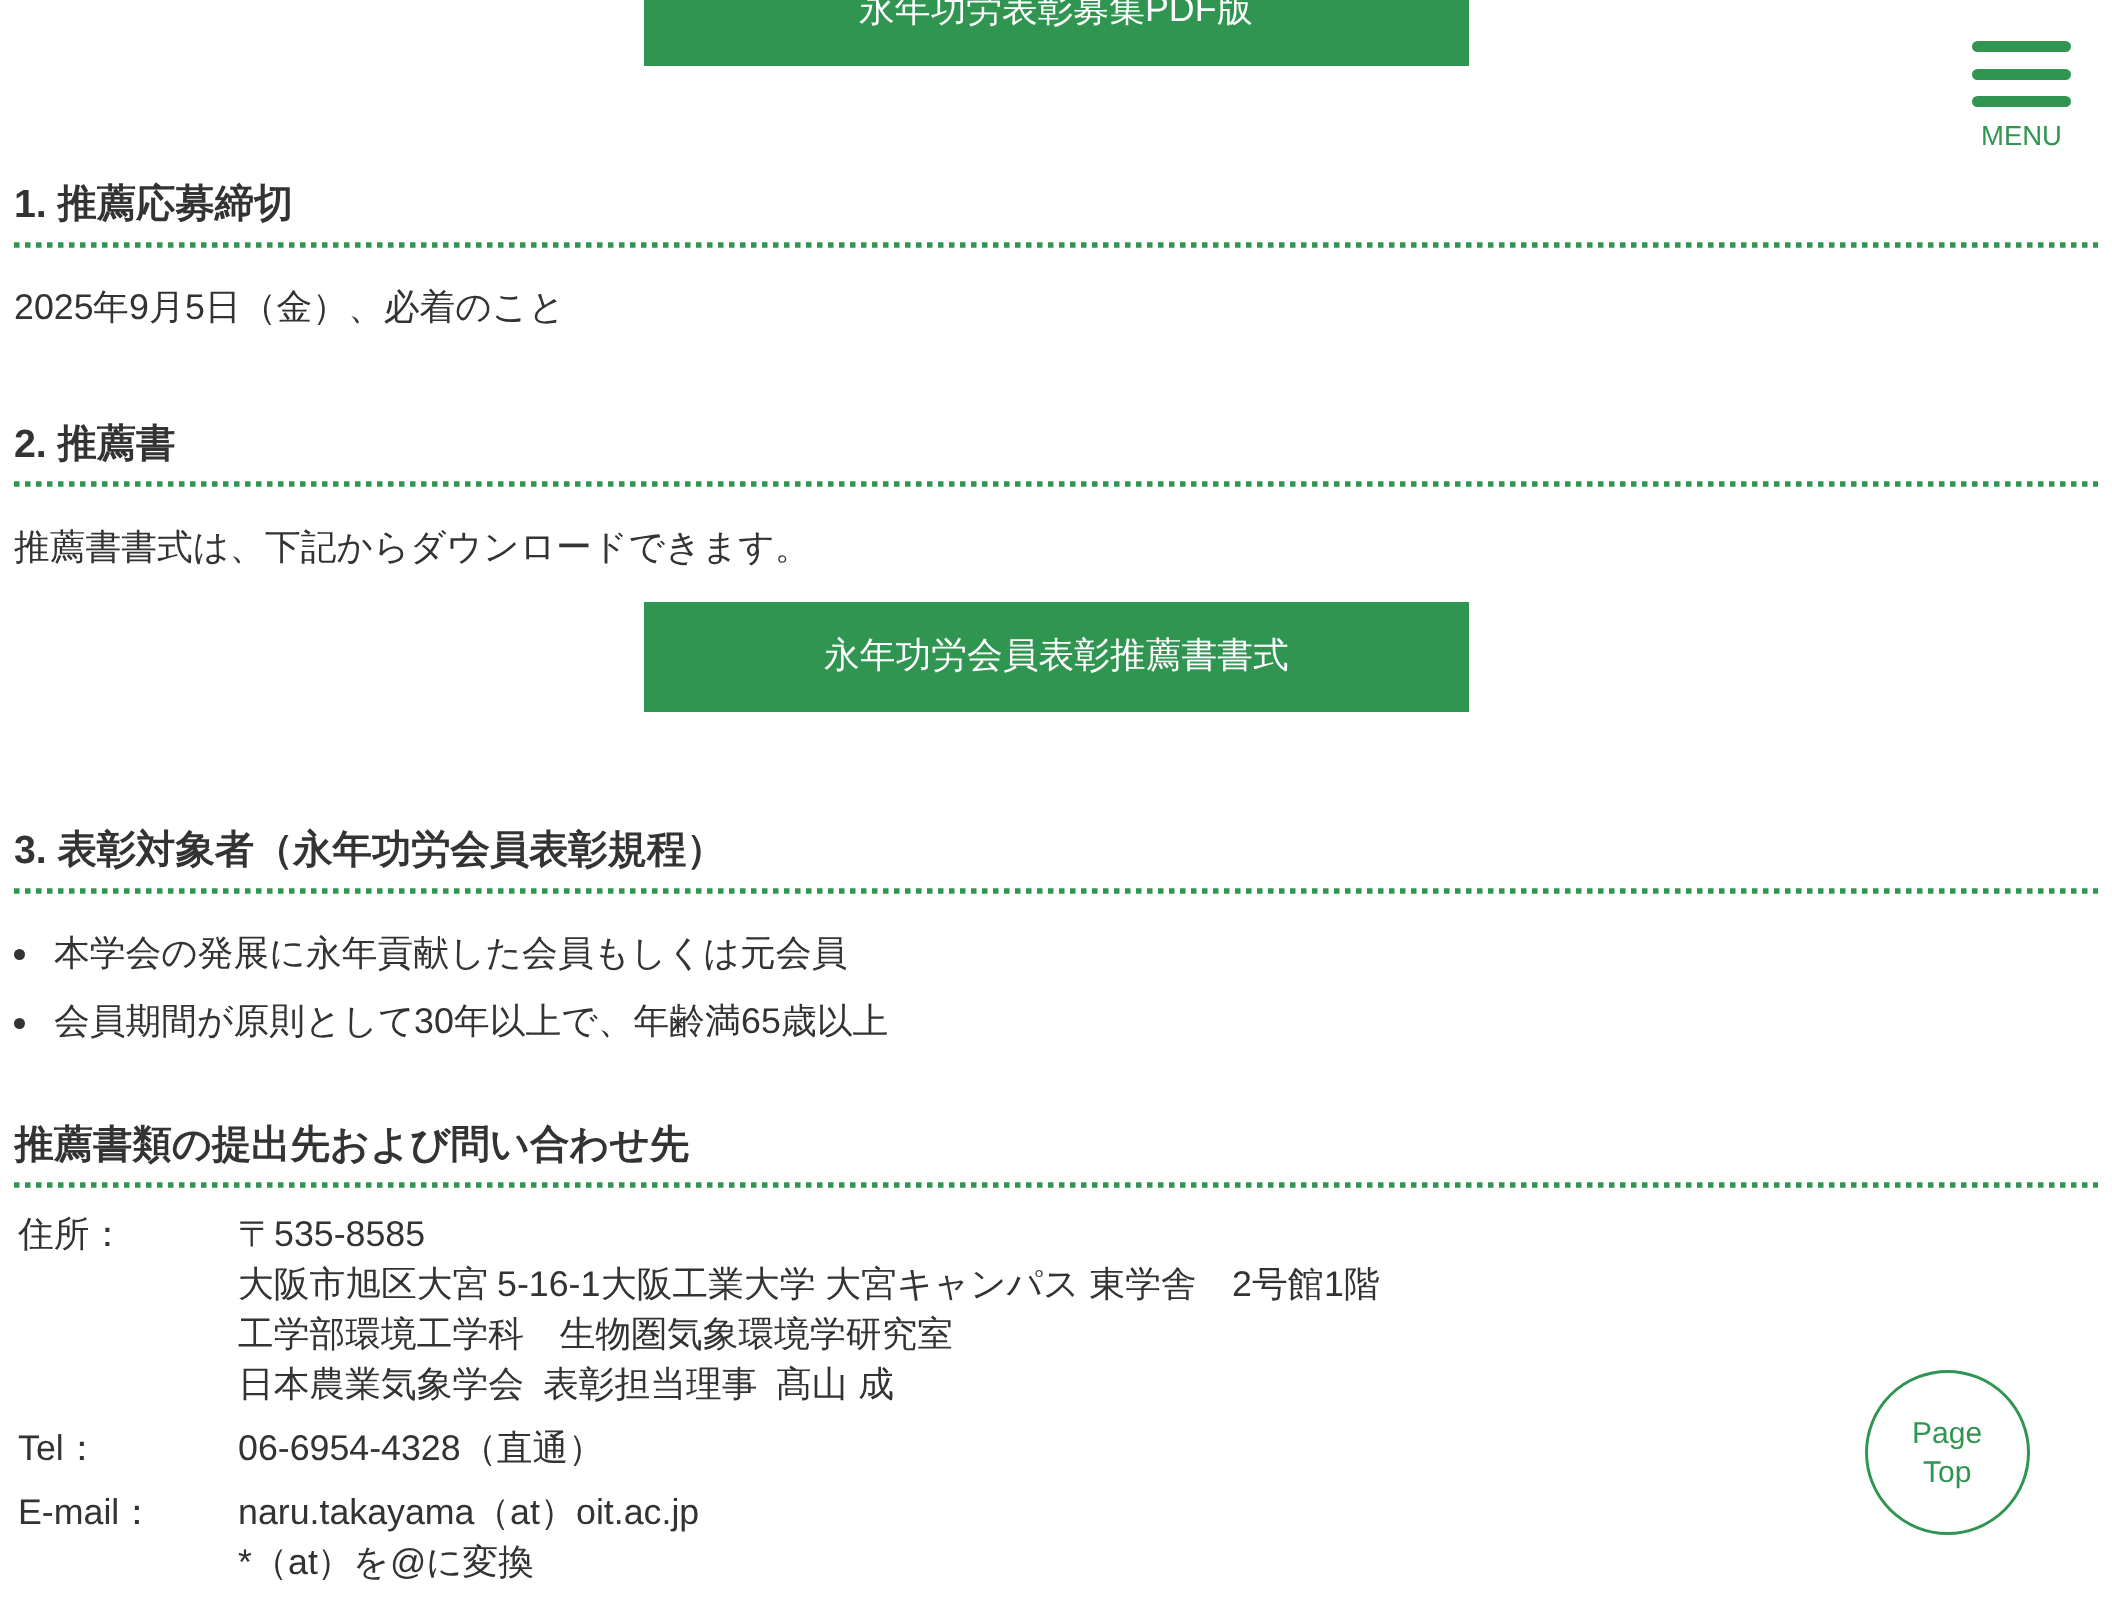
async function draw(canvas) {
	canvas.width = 2112;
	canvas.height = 1617;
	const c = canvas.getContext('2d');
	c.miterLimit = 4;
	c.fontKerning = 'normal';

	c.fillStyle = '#fff';
	c.fillRect(0, 0, 2112, 1617);
	c.fillStyle = '#319552';
	c.fillRect(644, 0, 825, 66);
	c.font = '500 35.75px WenQuanYi Zen Hei';
	c.fillStyle = '#fff';
	c.fillText('永年功労表彰募集', 859, 21);
	c.font = '35.75px Liberation Sans';
	c.fillText('PDF', 1145, 21);
	c.font = '500 35.75px WenQuanYi Zen Hei';
	c.fillText('版', 1217, 21);
	c.beginPath();
	c.moveTo(14, 245);
	c.lineTo(2098, 245);
	c.strokeStyle = '#319552';
	c.lineWidth = 5.5;
	c.setLineDash([5.5, 5.5]);
	c.stroke();
	c.font = 'bold 39.3px Liberation Sans';
	c.fillStyle = '#333';
	c.fillText('1.', 14, 217);
	c.font = 'bold 39.3px WenQuanYi Zen Hei';
	c.fillText('推薦応募締切', 57, 217);
	c.font = '35.75px Liberation Sans';
	c.fillText('2025', 14, 319);
	c.font = '500 35.75px WenQuanYi Zen Hei';
	c.fillText('年', 93, 319);
	c.font = '35.75px Liberation Sans';
	c.fillText('9', 129, 319);
	c.font = '500 35.75px WenQuanYi Zen Hei';
	c.fillText('月', 149, 319);
	c.font = '35.75px Liberation Sans';
	c.fillText('5', 185, 319);
	c.font = '500 35.75px WenQuanYi Zen Hei';
	c.fillText('日（金）、必着のこと', 205, 319);
	c.beginPath();
	c.moveTo(14, 484);
	c.lineTo(2098, 484);
	c.stroke();
	c.font = 'bold 39.3px Liberation Sans';
	c.fillText('2.', 14, 457);
	c.font = 'bold 39.3px WenQuanYi Zen Hei';
	c.fillText('推薦書', 57, 457);
	c.font = '500 35.75px WenQuanYi Zen Hei';
	c.fillText('推薦書書式は、下記からダウンロードできます。', 14, 559);
	c.fillStyle = '#319552';
	c.fillRect(644, 602, 825, 110);
	c.fillStyle = '#fff';
	c.fillText('永年功労会員表彰推薦書書式', 824, 667);
	c.beginPath();
	c.moveTo(14, 891);
	c.lineTo(2098, 891);
	c.stroke();
	c.font = 'bold 39.3px Liberation Sans';
	c.fillStyle = '#333';
	c.fillText('3.', 14, 863);
	c.font = 'bold 39.3px WenQuanYi Zen Hei';
	c.fillText('表彰対象者（永年功労会員表彰規程）', 57, 863);
	c.beginPath();
	c.arc(19.5, 954.5, 5.5, 0, 2 * Math.PI);
	c.fill();
	c.font = '500 35.75px WenQuanYi Zen Hei';
	c.fillText('本学会の発展に永年貢献した会員もしくは元会員', 54, 965);
	c.beginPath();
	c.arc(19.5, 1023.5, 5.5, 0, 2 * Math.PI);
	c.fill();
	c.fillText('会員期間が原則として', 54, 1033);
	c.font = '35.75px Liberation Sans';
	c.fillText('30', 414, 1033);
	c.font = '500 35.75px WenQuanYi Zen Hei';
	c.fillText('年以上で、年齢満', 454, 1033);
	c.font = '35.75px Liberation Sans';
	c.fillText('65', 741, 1033);
	c.font = '500 35.75px WenQuanYi Zen Hei';
	c.fillText('歳以上', 781, 1033);
	c.beginPath();
	c.moveTo(14, 1185);
	c.lineTo(2098, 1185);
	c.stroke();
	c.font = 'bold 39.3px WenQuanYi Zen Hei';
	c.fillText('推薦書類の提出先および問い合わせ先', 14, 1158);
	c.font = '500 35.75px WenQuanYi Zen Hei';
	c.fillText('住所：', 18, 1246);
	c.fillText('〒', 238, 1246);
	c.font = '35.75px Liberation Sans';
	c.fillText('535-8585', 274, 1246);
	c.font = '500 35.75px WenQuanYi Zen Hei';
	c.fillText('大阪市旭区大宮', 238, 1296);
	c.font = '35.75px Liberation Sans';
	c.fillText('5-16-1', 497, 1296);
	c.wordSpacing = '-1px';
	c.font = '500 35.75px WenQuanYi Zen Hei';
	c.fillText('大阪工業大学 大宮キャンパス 東学舎', 601, 1296);
	c.wordSpacing = '0px';
	c.font = '35.75px Liberation Sans';
	c.fillText('2', 1232, 1296);
	c.font = '500 35.75px WenQuanYi Zen Hei';
	c.fillText('号館', 1252, 1296);
	c.font = '35.75px Liberation Sans';
	c.fillText('1', 1324, 1296);
	c.font = '500 35.75px WenQuanYi Zen Hei';
	for (const [text, x, y] of [
		['階', 1344, 1296],
		['工学部環境工学科　生物圏気象環境学研究室', 238, 1346],
		['日本農業気象学会', 238, 1396],
		['表彰担当理事', 543, 1396],
		['髙山 成', 776, 1396],
	]) {
		c.fillText(text, x, y);
	}
	c.font = '35.75px Liberation Sans';
	c.fillText('Tel', 18, 1460);
	c.font = '500 35.75px WenQuanYi Zen Hei';
	c.fillText('：', 64, 1460);
	c.font = '35.75px Liberation Sans';
	c.fillText('06-6954-4328', 238, 1460);
	c.font = '500 35.75px WenQuanYi Zen Hei';
	c.fillText('（直通）', 461, 1460);
	c.font = '35.75px Liberation Sans';
	c.fillText('E-mail', 18, 1524);
	c.font = '500 35.75px WenQuanYi Zen Hei';
	c.fillText('：', 119, 1524);
	c.font = '35.75px Liberation Sans';
	c.fillText('naru.takayama', 238, 1524);
	c.font = '500 35.75px WenQuanYi Zen Hei';
	c.fillText('（', 474, 1524);
	c.font = '35.75px Liberation Sans';
	c.fillText('at', 510, 1524);
	c.font = '500 35.75px WenQuanYi Zen Hei';
	c.fillText('）', 540, 1524);
	c.font = '35.75px Liberation Sans';
	c.fillText('oit.ac.jp', 576, 1524);
	c.fillText('*', 238, 1574);
	c.font = '500 35.75px WenQuanYi Zen Hei';
	c.fillText('（', 252, 1574);
	c.font = '35.75px Liberation Sans';
	c.fillText('at', 288, 1574);
	c.font = '500 35.75px WenQuanYi Zen Hei';
	c.fillText('）を', 317, 1574);
	c.font = '35.75px Liberation Sans';
	c.fillText('@', 390, 1574);
	c.font = '500 35.75px WenQuanYi Zen Hei';
	c.fillText('に変換', 426, 1574);
	c.fillStyle = '#319552';
	c.beginPath();
	c.roundRect(1972, 41, 99, 11, 5.5);
	c.fill();
	c.beginPath();
	c.roundRect(1972, 69, 99, 11, 5.5);
	c.fill();
	c.beginPath();
	c.roundRect(1972, 96, 99, 11, 5.5);
	c.fill();
	c.font = '27.5px Liberation Sans';
	c.fillText('MENU', 1981, 145);
	c.beginPath();
	c.arc(1947.5, 1452.5, 81, 0, 2 * Math.PI);
	c.lineWidth = 3;
	c.setLineDash([]);
	c.stroke();
	c.font = '30px Liberation Sans';
	c.fillText('Page', 1912, 1443);
	c.fillText('Top', 1923, 1482);
}

draw(document.querySelector('canvas'));
